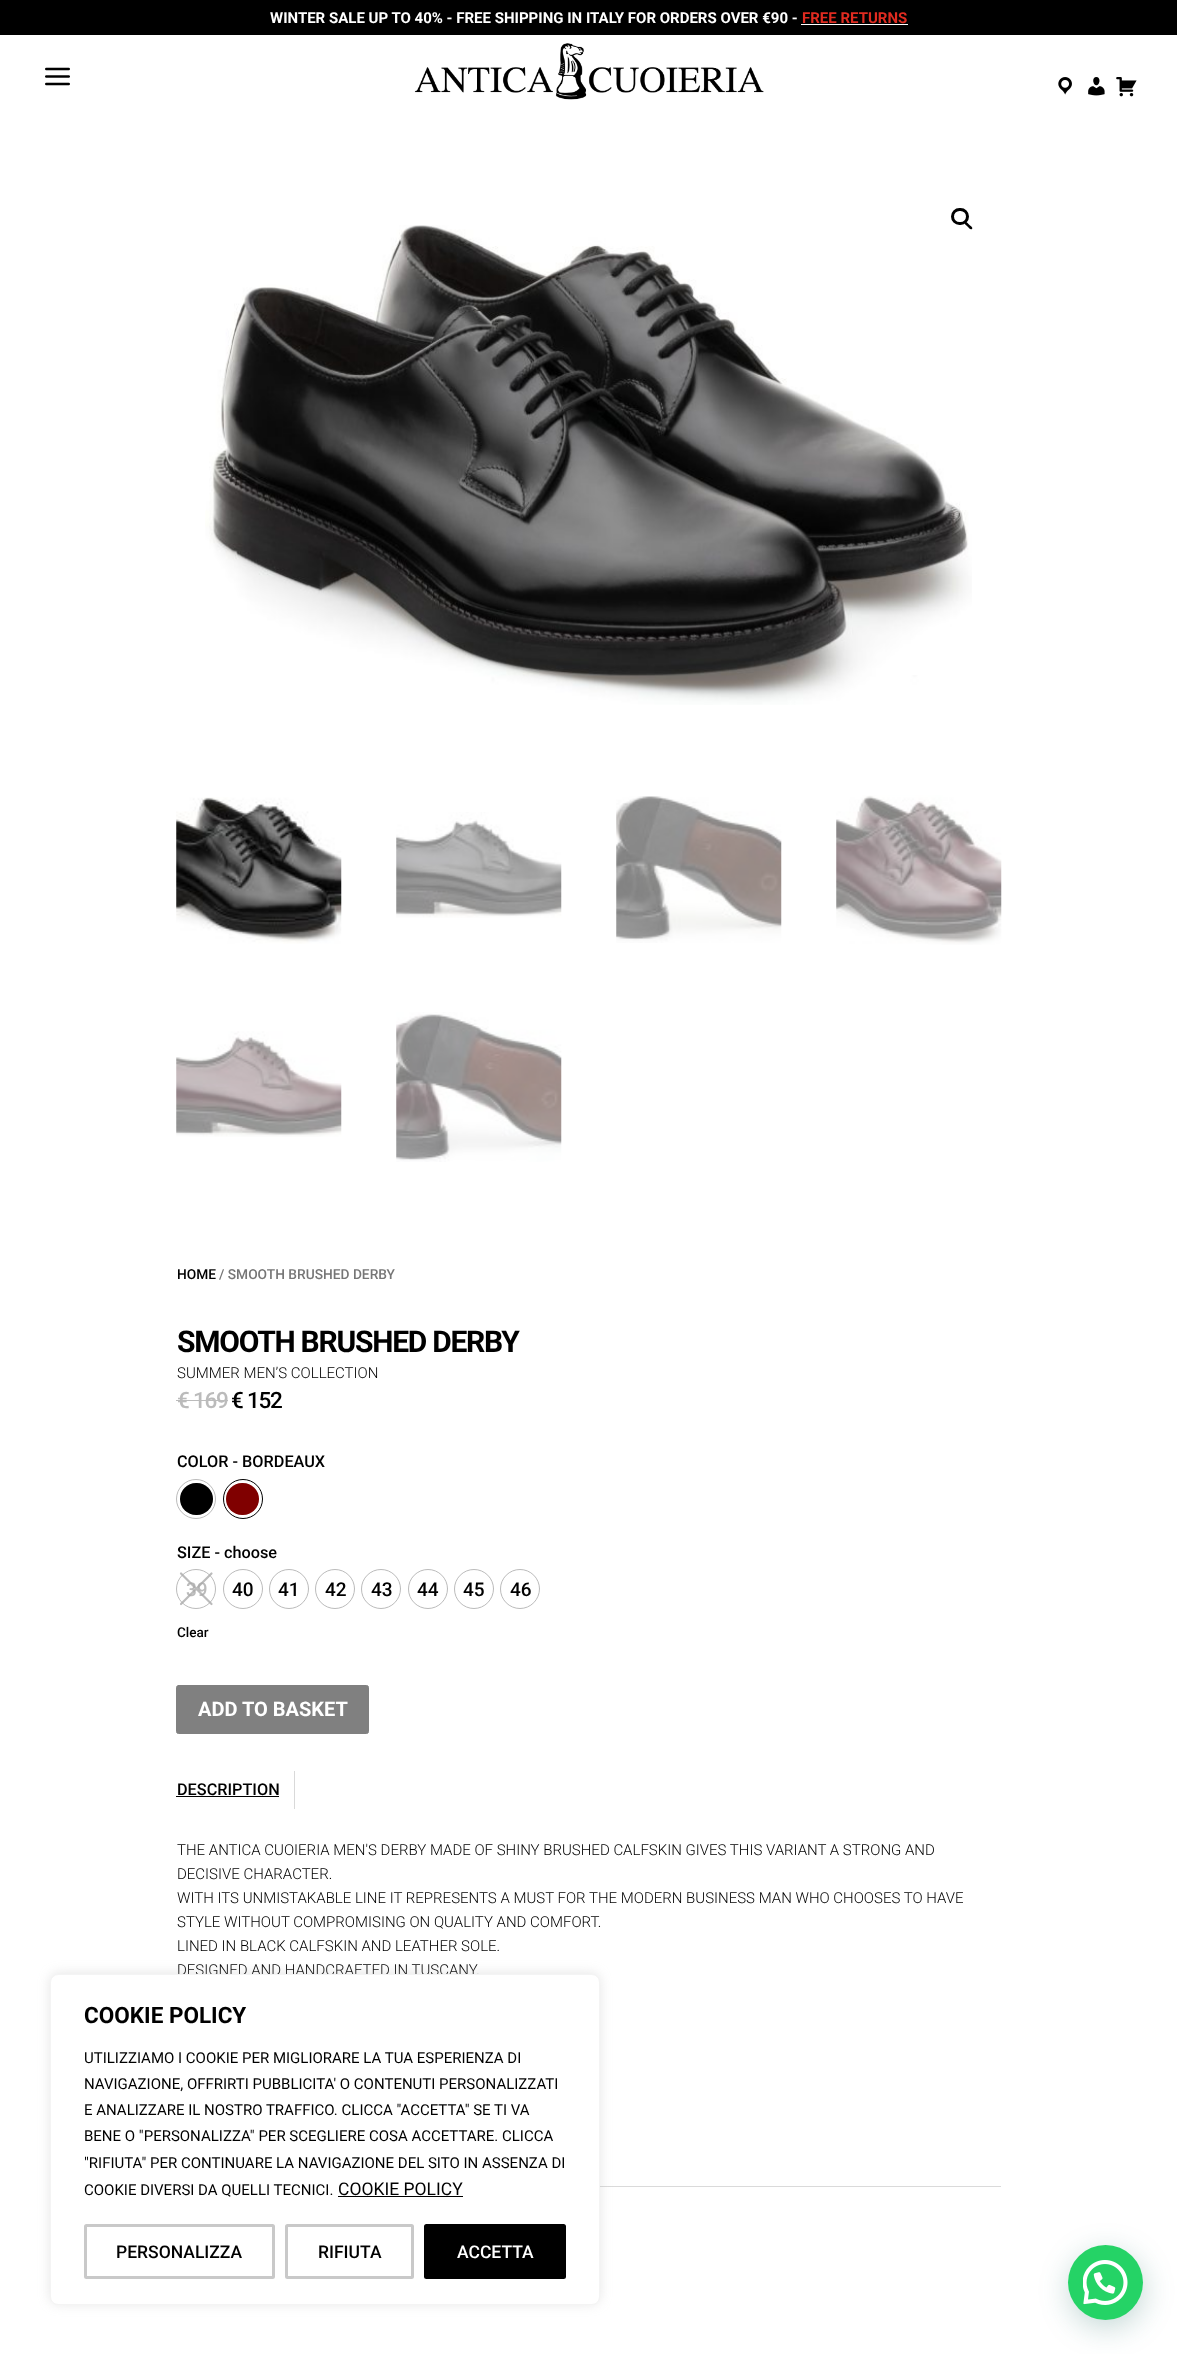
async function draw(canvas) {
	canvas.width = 1177;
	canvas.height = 2354;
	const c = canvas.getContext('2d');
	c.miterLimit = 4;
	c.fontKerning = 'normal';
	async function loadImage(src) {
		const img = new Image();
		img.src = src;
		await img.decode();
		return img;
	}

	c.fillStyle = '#fff';
	c.fillRect(0, 0, 1177, 2354);
	c.fillStyle = '#000';
	c.fillRect(0, 0, 1177, 35);
	c.font = 'bold 15px Roboto';
	c.fillStyle = '#fff';
	c.fillText('WINTER SALE UP TO 40% - FREE SHIPPING IN ITALY FOR ORDERS OVER €90 -', 270, 23);
	c.fillStyle = '#e02b20';
	c.fillText('FREE RETURNS', 802, 23);
	c.fillStyle = '#fff';
	c.fillRect(801, 24, 107, 1);
	c.drawImage(await loadImage('img1.png'), 45, 67, 25, 19);
	c.drawImage(await loadImage('img2.png'), 414, 43, 350, 57);
	c.drawImage(await loadImage('img3.png'), 1058, 77, 14, 18);
	c.drawImage(await loadImage('img4.png'), 1088, 77, 17, 19);
	c.drawImage(await loadImage('img5.png'), 1116, 77, 21, 20);
	c.beginPath();
	c.roundRect(952.5, 209.5, 15, 14, 7);
	c.strokeStyle = '#000';
	c.lineWidth = 3;
	c.stroke();
	c.drawImage(await loadImage('img6.png'), 205, 225, 767, 480);
	c.fillStyle = '#000';
	c.beginPath();
	c.moveTo(965, 222);
	c.bezierCurveTo(966, 220.5, 968.5, 224, 969, 224.5);
	c.bezierCurveTo(970, 225.5, 973.5, 227.5, 972, 229);
	c.bezierCurveTo(970.5, 230.5, 968, 227, 967.5, 226.5);
	c.bezierCurveTo(966.5, 225.5, 963.5, 223.5, 965, 222);
	c.closePath();
	c.fill();
	c.drawImage(await loadImage('img7.png'), 176, 797, 166, 147);
	c.drawImage(await loadImage('img8.png'), 396, 812, 166, 106);
	c.drawImage(await loadImage('img9.png'), 616, 796, 166, 147);
	c.drawImage(await loadImage('img10.png'), 836, 795, 166, 150);
	c.drawImage(await loadImage('img11.png'), 176, 1031, 166, 106);
	c.drawImage(await loadImage('img12.png'), 396, 1012, 166, 150);
	c.font = '500 13.75px Roboto';
	c.fillText('HOME', 177, 1279);
	c.fillStyle = '#767676';
	c.fillText('/ SMOOTH BRUSHED DERBY', 219, 1279);
	c.letterSpacing = '-1.25px';
	c.font = 'bold 30px Roboto';
	c.fillStyle = '#000';
	c.fillText('SMOOTH BRUSHED DERBY', 177, 1352);
	c.letterSpacing = '0px';
	c.font = '300 15px Roboto';
	c.fillText('SUMMER MEN’S COLLECTION', 177, 1378);
	c.letterSpacing = '-1.25px';
	c.font = '500 22.5px Roboto';
	c.fillStyle = '#bbb';
	c.fillText('€ 169', 177, 1408);
	c.fillRect(176, 1400, 52, 1);
	c.fillStyle = '#000';
	c.fillText('€ 152', 231, 1408);
	c.letterSpacing = '0px';
	c.font = '500 16.25px Roboto';
	c.fillText('COLOR - BORDEAUX', 177, 1467);
	c.beginPath();
	c.arc(196, 1499, 19.5, 0, 2 * Math.PI);
	c.strokeStyle = '#bbb';
	c.lineWidth = 1;
	c.stroke();
	c.beginPath();
	c.roundRect(180, 1483, 33, 32, 16);
	c.fill();
	c.beginPath();
	c.arc(243, 1499, 19.5, 0, 2 * Math.PI);
	c.strokeStyle = '#000';
	c.stroke();
	c.fillStyle = '#800000';
	c.beginPath();
	c.roundRect(226, 1483, 33, 32, 16);
	c.fill();
	c.fillStyle = '#000';
	c.fillText('SIZE - choose', 177, 1558);
	c.beginPath();
	c.arc(196, 1589, 19.5, 0, 2 * Math.PI);
	c.strokeStyle = '#bbb';
	c.stroke();
	c.font = '500 19px Roboto';
	c.fillStyle = '#bbb';
	c.fillText('39', 186, 1596);
	c.beginPath();
	c.moveTo(181, 1573.5);
	c.lineTo(211.5, 1604);
	c.moveTo(211.5, 1573.5);
	c.lineTo(181, 1604);
	c.strokeStyle = '#aaaaaacc';
	c.lineWidth = 2.2;
	c.lineCap = 'round';
	c.stroke();
	c.beginPath();
	c.arc(243, 1589, 19.5, 0, 2 * Math.PI);
	c.strokeStyle = '#bbb';
	c.lineWidth = 1;
	c.stroke();
	c.fillStyle = '#000';
	c.fillText('40', 232, 1596);
	c.beginPath();
	c.arc(289, 1589, 19.5, 0, 2 * Math.PI);
	c.stroke();
	c.fillText('41', 278, 1596);
	c.beginPath();
	c.arc(335, 1589, 19.5, 0, 2 * Math.PI);
	c.stroke();
	c.fillText('42', 325, 1596);
	c.beginPath();
	c.arc(381, 1589, 19.5, 0, 2 * Math.PI);
	c.stroke();
	c.fillText('43', 371, 1596);
	c.beginPath();
	c.arc(428, 1589, 19.5, 0, 2 * Math.PI);
	c.stroke();
	c.fillText('44', 417, 1596);
	c.beginPath();
	c.arc(474, 1589, 19.5, 0, 2 * Math.PI);
	c.stroke();
	c.fillText('45', 463, 1596);
	c.beginPath();
	c.arc(520, 1589, 19.5, 0, 2 * Math.PI);
	c.stroke();
	c.fillText('46', 510, 1596);
	c.font = '500 13.5px Roboto';
	c.fillText('Clear', 177, 1637);
	c.fillStyle = '#808080';
	c.beginPath();
	c.roundRect(176.5, 1685.5, 192, 48, 2);
	c.fill();
	c.strokeStyle = '#808080';
	c.stroke();
	c.font = 'bold 20px Roboto';
	c.fillStyle = '#fff';
	c.fillText('ADD TO BASKET', 198, 1716);
	c.fillStyle = '#d9d9d9';
	c.fillRect(294, 1771, 1, 38);
	c.font = '500 16.25px Roboto';
	c.fillStyle = '#000';
	c.fillText('DESCRIPTION', 177, 1795);
	c.fillRect(176, 1796, 103, 1);
	c.font = '300 15px Roboto';
	for (const [text, x, y] of [
		['THE ANTICA CUOIERIA MEN\'S DERBY MADE OF SHINY BRUSHED CALFSKIN GIVES THIS VARIANT A STRONG AND', 177, 1855],
		['DECISIVE CHARACTER.', 177, 1879],
		['WITH ITS UNMISTAKABLE LINE IT REPRESENTS A MUST FOR THE MODERN BUSINESS MAN WHO CHOOSES TO HAVE', 177, 1903],
		['STYLE WITHOUT COMPROMISING ON QUALITY AND COMFORT.', 177, 1927],
		['LINED IN BLACK CALFSKIN AND LEATHER SOLE.', 177, 1951],
		['DESIGNED AND HANDCRAFTED IN TUSCANY.', 177, 1975],
	]) {
		c.fillText(text, x, y);
	}
	c.fillStyle = '#dadada';
	c.fillRect(600, 2186, 401, 1);
	c.fillStyle = '#acabab4d';
	c.filter = 'blur(6px)';
	c.beginPath();
	c.roundRect(50, 1973, 550, 331, 8);
	c.fill();
	c.filter = 'none';
	c.fillStyle = '#fff';
	c.beginPath();
	c.roundRect(50.5, 1974.5, 549, 330, 7.5);
	c.fill();
	c.strokeStyle = '#f4f4f4';
	c.stroke();
	c.font = 'bold 22.5px Roboto';
	c.fillStyle = '#000';
	c.fillText('COOKIE POLICY', 84, 2023);
	c.font = '15px Roboto';
	for (const [text, x, y] of [
		['UTILIZZIAMO I COOKIE PER MIGLIORARE LA TUA ESPERIENZA DI', 84, 2063],
		['NAVIGAZIONE, OFFRIRTI PUBBLICITA\' O CONTENUTI PERSONALIZZATI', 84, 2089],
		['E ANALIZZARE IL NOSTRO TRAFFICO. CLICCA "ACCETTA" SE TI VA', 84, 2115],
		['BENE O "PERSONALIZZA" PER SCEGLIERE COSA ACCETTARE. CLICCA', 84, 2141],
		['"RIFIUTA" PER CONTINUARE LA NAVIGAZIONE DEL SITO IN ASSENZA DI', 84, 2168],
		['COOKIE DIVERSI DA QUELLI TECNICI.', 84, 2195],
	]) {
		c.fillText(text, x, y);
	}
	c.font = '17.5px Roboto';
	c.fillText('COOKIE POLICY', 338, 2195);
	c.fillRect(338, 2196, 125, 1);
	c.beginPath();
	c.roundRect(85.5, 2225.5, 188, 52, 1);
	c.strokeStyle = '#c9c9c9';
	c.lineWidth = 3;
	c.stroke();
	c.font = '500 17.5px Roboto';
	c.fillText('PERSONALIZZA', 116, 2258);
	c.beginPath();
	c.roundRect(286.5, 2225.5, 126, 52, 1);
	c.stroke();
	c.fillText('RIFIUTA', 318, 2258);
	c.beginPath();
	c.roundRect(425.5, 2225.5, 139, 52, 1);
	c.fill();
	c.strokeStyle = '#000';
	c.stroke();
	c.fillStyle = '#fff';
	c.fillText('ACCETTA', 457, 2258);
	c.fillStyle = '#075e543d';
	c.filter = 'blur(15px)';
	c.beginPath();
	c.roundRect(1069, 2253, 75, 75, 37.5);
	c.fill();
	c.filter = 'none';
	c.fillStyle = '#25d366';
	c.beginPath();
	c.arc(1105.5, 2282.5, 37.5, 0, 2 * Math.PI);
	c.fill();
	c.drawImage(await loadImage('img13.png'), 1083, 2260, 45, 45);
}

draw(document.querySelector('canvas'));
